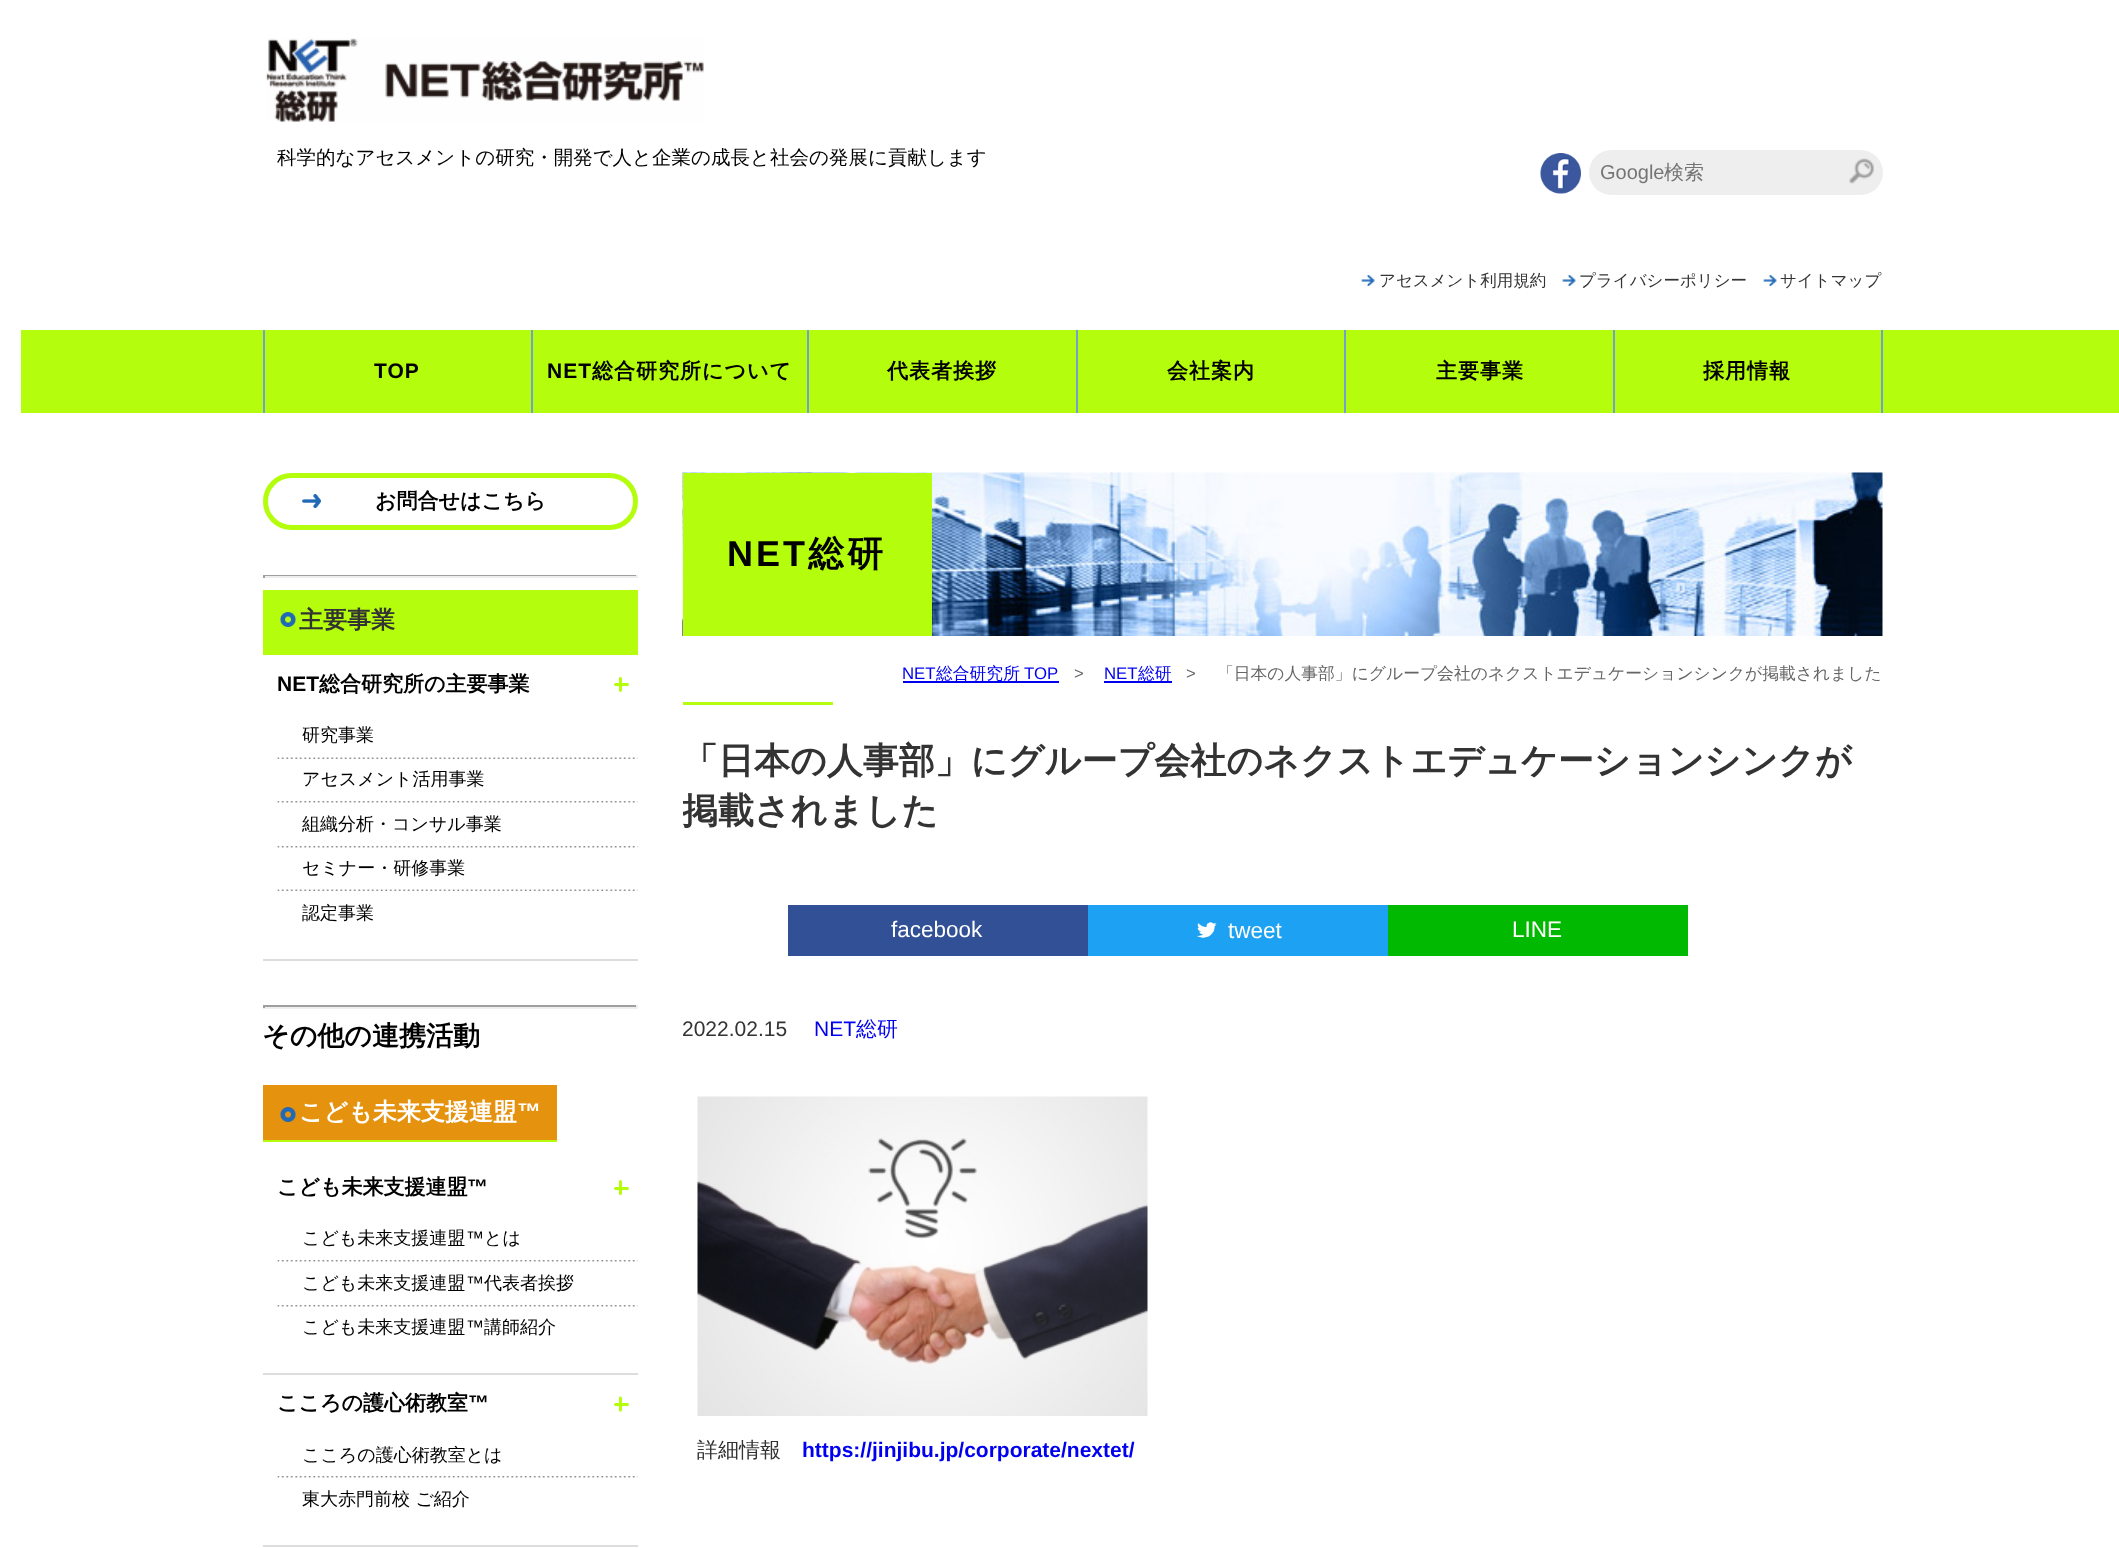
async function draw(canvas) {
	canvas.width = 2119;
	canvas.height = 1548;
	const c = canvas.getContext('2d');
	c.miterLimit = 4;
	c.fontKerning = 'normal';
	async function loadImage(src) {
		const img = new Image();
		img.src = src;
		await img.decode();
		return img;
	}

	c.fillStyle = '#fff';
	c.fillRect(0, 0, 2119, 1548);
	c.drawImage(await loadImage('img1.png'), 266, 38, 438, 84);
	c.font = '500 19.5px WenQuanYi Zen Hei';
	c.fillStyle = '#000';
	c.fillText('科学的なアセスメントの研究・開発で人と企業の成長と社会の発展に貢献します', 277, 164);
	c.drawImage(await loadImage('img2.png'), 1540, 153, 41, 41);
	c.fillStyle = '#eee';
	c.beginPath();
	c.roundRect(1589, 150, 294, 45, 22.5);
	c.fill();
	c.save();
	c.beginPath();
	c.rect(1601, 161, 270, 27);
	c.clip();
	c.font = '20px Liberation Sans';
	c.fillStyle = '#757575';
	c.fillText('Google', 1600, 179);
	c.restore();
	c.font = '500 20px WenQuanYi Zen Hei';
	c.fillStyle = '#757575';
	c.fillText('検索', 1664, 179);
	c.drawImage(await loadImage('img3.png'), 1849, 158, 25, 26);
	c.drawImage(await loadImage('img4.png'), 1361, 275, 14, 11);
	c.font = '500 16.5px WenQuanYi Zen Hei';
	c.fillStyle = '#333';
	c.fillText('アセスメント利用規約', 1379, 286);
	c.drawImage(await loadImage('img4.png'), 1562, 275, 14, 11);
	c.fillText('プライバシーポリシー', 1579, 286);
	c.drawImage(await loadImage('img4.png'), 1763, 275, 14, 11);
	c.fillText('サイトマップ', 1780, 286);
	c.fillStyle = '#b4fd0c';
	c.fillRect(21, 330, 2098, 83);
	c.fillStyle = '#72a0d1';
	c.fillRect(263, 330, 2, 83);
	c.letterSpacing = '1px';
	c.font = 'bold 21px Liberation Sans';
	c.fillStyle = '#000';
	c.fillText('TOP', 374, 378);
	c.fillStyle = '#72a0d1';
	c.fillRect(531, 330, 2, 83);
	c.fillStyle = '#000';
	c.fillText('NET', 547, 378);
	c.font = 'bold 21px WenQuanYi Zen Hei';
	c.fillText('総合研究所について', 592, 378);
	c.fillStyle = '#72a0d1';
	c.fillRect(807, 330, 2, 83);
	c.fillStyle = '#000';
	c.fillText('代表者挨拶', 887, 378);
	c.fillStyle = '#72a0d1';
	c.fillRect(1076, 330, 2, 83);
	c.fillStyle = '#000';
	c.fillText('会社案内', 1167, 378);
	c.fillStyle = '#72a0d1';
	c.fillRect(1344, 330, 2, 83);
	c.fillStyle = '#000';
	c.fillText('主要事業', 1436, 378);
	c.fillStyle = '#72a0d1';
	c.fillRect(1881, 330, 2, 83);
	c.fillRect(1613, 330, 2, 83);
	c.fillStyle = '#000';
	c.fillText('採用情報', 1703, 378);
	c.drawImage(await loadImage('img5.png'), 302, 494, 19, 14);
	c.beginPath();
	c.roundRect(265.5, 475.5, 370, 52, 26);
	c.strokeStyle = '#b4fd0c';
	c.lineWidth = 5;
	c.stroke();
	c.letterSpacing = '0px';
	c.fillText('お問合せはこちら', 375, 508);
	for (const [x, y, w, h, color] of [
		[263, 575, 375, 1, '#9f9f9f'],
		[636, 575, 2, 3, '#eee'],
		[263, 576, 375, 2, '#eee'],
		[263, 575, 2, 3, '#9f9f9f'],
		[263, 590, 375, 65, '#b4fd0c'],
	]) {
		c.fillStyle = color;
		c.fillRect(x, y, w, h);
	}
	c.drawImage(await loadImage('img6.png'), 280, 612, 16, 15);
	c.font = 'bold 24px WenQuanYi Zen Hei';
	c.fillStyle = '#333';
	c.fillText('主要事業', 299, 628);
	c.fillStyle = '#ddd';
	c.fillRect(263, 959, 375, 2);
	c.font = 'bold 21px Liberation Sans';
	c.fillStyle = '#000';
	c.fillText('NET', 277, 691);
	c.font = 'bold 21px WenQuanYi Zen Hei';
	c.fillText('総合研究所の主要事業', 319, 691);
	c.fillStyle = '#b4fd0c';
	c.beginPath();
	c.roundRect(614, 683, 15, 3, 1.5);
	c.fill();
	c.beginPath();
	c.moveTo(622, 678.5);
	c.lineTo(622, 690.5);
	c.bezierCurveTo(622, 691, 621, 692, 620, 692);
	c.bezierCurveTo(619.5, 692, 619, 691, 619, 690.5);
	c.lineTo(619, 678.5);
	c.bezierCurveTo(619, 677.5, 619.5, 677, 620, 677);
	c.bezierCurveTo(621, 677, 622, 677.5, 622, 678.5);
	c.closePath();
	c.fill();
	c.drawImage(await loadImage('img7.png'), 277, 757, 361, 2);
	c.font = '500 18px WenQuanYi Zen Hei';
	c.fillStyle = '#000';
	c.fillText('研究事業', 302, 741);
	c.drawImage(await loadImage('img8.png'), 277, 801, 361, 2);
	c.fillText('アセスメント活用事業', 302, 785);
	c.drawImage(await loadImage('img8.png'), 277, 846, 361, 2);
	c.fillText('組織分析・コンサル事業', 302, 830);
	c.drawImage(await loadImage('img7.png'), 277, 889, 361, 2);
	c.fillText('セミナー・研修事業', 302, 874);
	c.fillText('認定事業', 302, 919);
	for (const [x, y, w, h, color] of [
		[263, 1005, 375, 2, '#9f9f9f'],
		[636, 1005, 2, 3, '#eee'],
		[263, 1007, 375, 2, '#eee'],
		[263, 1005, 2, 3, '#9f9f9f'],
	]) {
		c.fillStyle = color;
		c.fillRect(x, y, w, h);
	}
	c.font = 'bold 27px WenQuanYi Zen Hei';
	c.fillStyle = '#000';
	c.fillText('その他の連携活動', 262, 1045);
	c.fillStyle = '#e5920f';
	c.fillRect(263, 1085, 294, 55);
	c.drawImage(await loadImage('img9.png'), 280, 1107, 16, 15);
	c.font = 'bold 24px WenQuanYi Zen Hei';
	c.fillStyle = '#fff';
	c.fillText('こども未来支援連盟', 299, 1120);
	c.fillStyle = '#b4fd0c';
	c.fillRect(263, 1140, 294, 2);
	c.font = 'bold 24px Liberation Sans';
	c.fillStyle = '#fff';
	c.fillText('™', 517, 1120);
	c.fillStyle = '#ddd';
	c.fillRect(263, 1373, 375, 2);
	c.font = 'bold 21px WenQuanYi Zen Hei';
	c.fillStyle = '#000';
	c.fillText('こども未来支援連盟', 277, 1194);
	c.font = 'bold 21px Liberation Sans';
	c.fillText('™', 467, 1194);
	c.fillStyle = '#b4fd0c';
	c.beginPath();
	c.roundRect(614, 1187, 15, 3, 1.5);
	c.fill();
	c.beginPath();
	c.moveTo(622, 1181.5);
	c.lineTo(622, 1193.5);
	c.bezierCurveTo(622, 1194.5, 621, 1195, 620, 1195);
	c.bezierCurveTo(619.5, 1195, 619, 1194.5, 619, 1193.5);
	c.lineTo(619, 1181.5);
	c.bezierCurveTo(619, 1181, 619.5, 1180, 620, 1180);
	c.bezierCurveTo(621, 1180, 622, 1181, 622, 1181.5);
	c.closePath();
	c.fill();
	c.drawImage(await loadImage('img8.png'), 277, 1260, 361, 2);
	c.font = '500 18px WenQuanYi Zen Hei';
	c.fillStyle = '#000';
	c.fillText('こども未来支援連盟', 302, 1244);
	c.font = '18px Liberation Sans';
	c.fillText('™', 466, 1244);
	c.font = '500 18px WenQuanYi Zen Hei';
	c.fillText('とは', 484, 1244);
	c.drawImage(await loadImage('img8.png'), 277, 1305, 361, 2);
	c.fillText('こども未来支援連盟', 302, 1289);
	c.font = '18px Liberation Sans';
	c.fillText('™', 466, 1289);
	c.font = '500 18px WenQuanYi Zen Hei';
	c.fillText('代表者挨拶', 484, 1289);
	c.fillText('こども未来支援連盟', 302, 1333);
	c.font = '18px Liberation Sans';
	c.fillText('™', 466, 1333);
	c.font = '500 18px WenQuanYi Zen Hei';
	c.fillText('講師紹介', 484, 1333);
	c.fillStyle = '#ddd';
	c.fillRect(263, 1545, 375, 2);
	c.font = 'bold 21px WenQuanYi Zen Hei';
	c.fillStyle = '#000';
	c.fillText('こころの護心術教室', 277, 1410);
	c.font = 'bold 21px Liberation Sans';
	c.fillText('™', 468, 1410);
	c.fillStyle = '#b4fd0c';
	c.beginPath();
	c.roundRect(614, 1403, 15, 3, 1.5);
	c.fill();
	c.beginPath();
	c.moveTo(622, 1398);
	c.lineTo(622, 1410);
	c.bezierCurveTo(622, 1411, 621, 1411.5, 620, 1411.5);
	c.bezierCurveTo(619.5, 1411.5, 619, 1411, 619, 1410);
	c.lineTo(619, 1398);
	c.bezierCurveTo(619, 1397.5, 619.5, 1396.5, 620, 1396.5);
	c.bezierCurveTo(621, 1396.5, 622, 1397.5, 622, 1398);
	c.closePath();
	c.fill();
	c.drawImage(await loadImage('img8.png'), 277, 1476, 361, 2);
	c.font = '500 18px WenQuanYi Zen Hei';
	c.fillStyle = '#000';
	c.fillText('こころの護心術教室とは', 302, 1461);
	c.fillText('東大赤門前校 ご紹介', 302, 1505);
	c.drawImage(await loadImage('img10.png'), 682, 472, 1201, 164);
	c.fillStyle = '#b4fd0c';
	c.fillRect(683, 473, 249, 163);
	c.letterSpacing = '3px';
	c.font = 'bold 36px Liberation Sans';
	c.fillStyle = '#000';
	c.fillText('NET', 727, 566);
	c.font = 'bold 36px WenQuanYi Zen Hei';
	c.fillText('総研', 808, 566);
	c.letterSpacing = '0px';
	c.font = '16.8px Liberation Sans';
	c.fillStyle = '#00e';
	c.fillText('NET', 902, 679);
	c.fillRect(903, 681, 156, 2);
	c.font = '500 16.8px WenQuanYi Zen Hei';
	c.fillText('総合研究所', 936, 679);
	c.font = '16.8px Liberation Sans';
	c.fillText('TOP', 1024, 679);
	c.fillStyle = '#666';
	c.fillText('>', 1074, 679);
	c.fillStyle = '#00e';
	c.fillText('NET', 1104, 679);
	c.fillRect(1104, 681, 68, 2);
	c.font = '500 16.8px WenQuanYi Zen Hei';
	c.fillText('総研', 1138, 679);
	c.font = '16.8px Liberation Sans';
	c.fillStyle = '#666';
	c.fillText('>', 1186, 679);
	c.font = '500 16.8px WenQuanYi Zen Hei';
	c.fillText('「日本の人事部」にグループ会社のネクストエデュケーションシンクが掲載されました', 1217, 679);
	c.fillStyle = '#b4fd0c';
	c.fillRect(683, 702, 150, 3);
	c.font = 'bold 36px WenQuanYi Zen Hei';
	c.fillStyle = '#333';
	c.fillText('「日本の人事部」にグループ会社のネクストエデュケーションシンクが', 682, 773);
	c.save();
	c.beginPath();
	c.rect(683, 702, 1200, 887);
	c.clip();
	c.fillText('掲載されました', 682, 823);
	c.restore();
	c.fillStyle = '#315096';
	c.fillRect(788, 905, 300, 51);
	c.font = '22.5px Liberation Sans';
	c.fillStyle = '#fff';
	c.fillText('facebook', 891, 937);
	c.fillStyle = '#1da1f2';
	c.fillRect(1088, 905, 300, 51);
	c.drawImage(await loadImage('img11.png'), 1197, 922, 20, 16);
	c.fillStyle = '#fff';
	c.fillText('tweet', 1228, 938);
	c.fillStyle = '#00b900';
	c.fillRect(1388, 905, 300, 51);
	c.fillStyle = '#fff';
	c.fillText('LINE', 1512, 937);
	c.font = '21px Liberation Sans';
	c.fillStyle = '#333';
	c.fillText('2022.02.15', 682, 1036);
	c.fillStyle = '#00e';
	c.fillText('NET', 814, 1036);
	c.font = '500 21px WenQuanYi Zen Hei';
	c.fillText('総研', 856, 1036);
	c.drawImage(await loadImage('img12.png'), 697, 1096, 451, 320);
	c.fillStyle = '#333';
	c.fillText('詳細情報', 697, 1457);
	c.font = 'bold 21px Liberation Sans';
	c.fillStyle = '#00e';
	c.fillText('https://jinjibu.jp/corporate/nextet/', 802, 1457);
}

draw(document.querySelector('canvas'));
